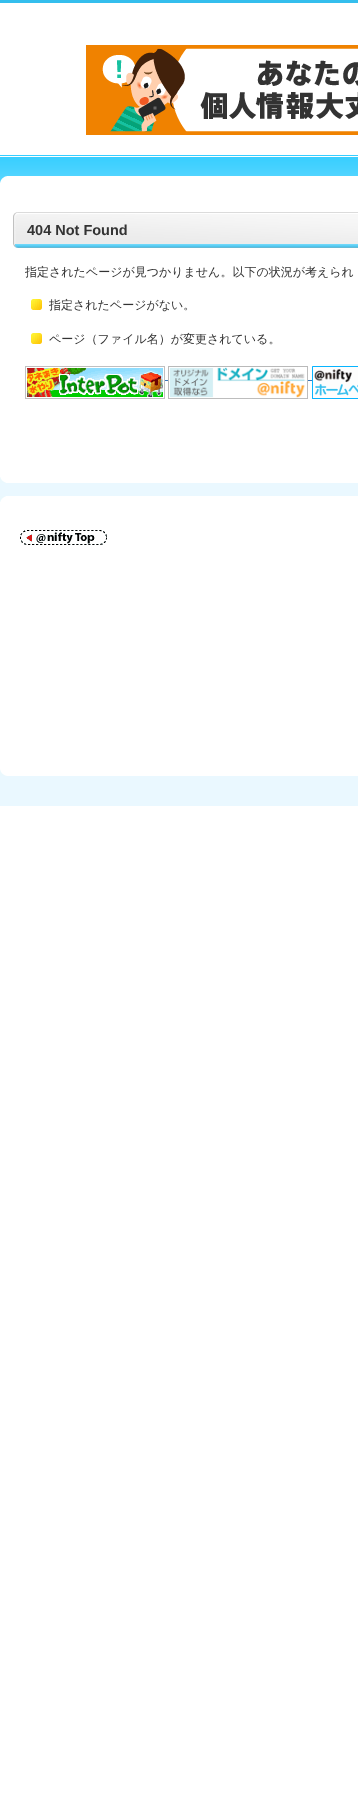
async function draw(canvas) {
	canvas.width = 358;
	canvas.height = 1813;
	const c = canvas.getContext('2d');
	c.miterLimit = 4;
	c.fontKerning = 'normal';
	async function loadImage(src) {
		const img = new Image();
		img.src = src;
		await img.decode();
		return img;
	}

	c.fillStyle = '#fff';
	c.fillRect(0, 0, 358, 1813);
	c.fillStyle = '#34beed';
	c.fillRect(0, 0, 358, 3);
	c.drawImage(await loadImage('img1.png'), 86, 45, 272, 90);
	c.fillStyle = '#eaf8ff';
	c.fillRect(0, 483, 358, 323);
	c.drawImage(await loadImage('img2.png'), 0, 155, 358, 21);
	c.drawImage(await loadImage('img3.png'), 0, 176, 7, 7);
	c.drawImage(await loadImage('img4.png'), 13, 212, 345, 32);
	c.drawImage(await loadImage('img5.png'), 13, 244, 345, 4);
	c.font = 'bold 14.5px Liberation Sans';
	c.fillStyle = '#333';
	c.fillText('404 Not Found', 27, 235);
	c.font = '500 12px WenQuanYi Zen Hei';
	c.fillText('指定されたページが見つかりません。以下の状況が考えられ', 25, 276);
	c.drawImage(await loadImage('img6.png'), 31, 299, 11, 11);
	c.fillText('指定されたページがない。', 49, 309);
	c.drawImage(await loadImage('img6.png'), 31, 333, 11, 11);
	c.fillText('ページ（ファイル名）が変更されている。', 49, 343);
	c.drawImage(await loadImage('img7.png'), 25, 366, 140, 33);
	c.fillStyle = '#3774bb';
	c.fillRect(165, 380, 3, 1);
	c.drawImage(await loadImage('img8.png'), 168, 366, 140, 33);
	c.fillRect(308, 380, 4, 1);
	c.drawImage(await loadImage('img9.png'), 312, 366, 46, 33);
	c.drawImage(await loadImage('img10.png'), 0, 477, 6, 6);
	c.fillStyle = '#fff';
	c.fillRect(0, 496, 358, 14);
	c.drawImage(await loadImage('img11.png'), 0, 496, 6, 6);
	c.drawImage(await loadImage('img12.png'), 0, 510, 358, 250);
	c.drawImage(await loadImage('img13.png'), 0, 760, 358, 16);
}

draw(document.querySelector('canvas'));
